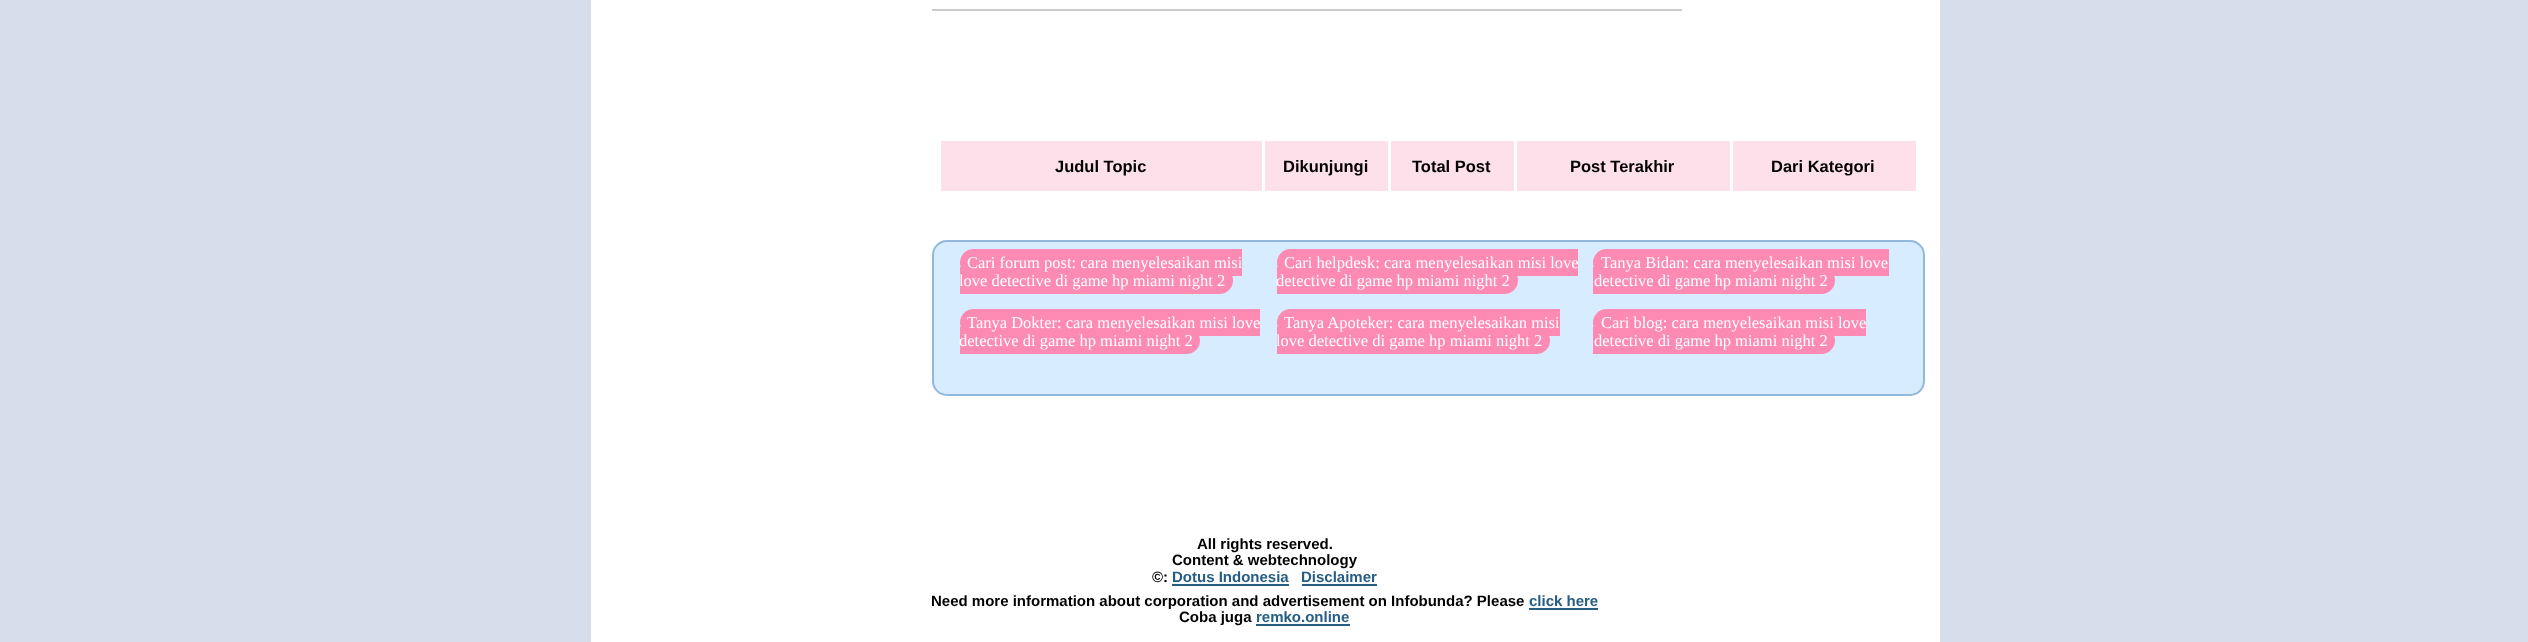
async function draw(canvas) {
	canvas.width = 2528;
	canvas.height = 642;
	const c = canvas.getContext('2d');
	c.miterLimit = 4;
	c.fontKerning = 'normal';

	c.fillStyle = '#d6deeb';
	c.fillRect(0, 0, 2528, 642);
	for (const [x, y, w, h, color] of [
		[591, 0, 1349, 642, '#fff'],
		[932, 9, 750, 2, '#ccc'],
		[941, 141, 321, 50, '#fde0ea'],
	]) {
		c.fillStyle = color;
		c.fillRect(x, y, w, h);
	}
	c.font = 'bold 16.5px Liberation Sans';
	c.fillStyle = '#000';
	c.fillText('Judul Topic', 1055, 172);
	c.fillStyle = '#fde0ea';
	c.fillRect(1265, 141, 123, 50);
	c.fillStyle = '#000';
	c.fillText('Dikunjungi', 1283, 172);
	c.fillStyle = '#fde0ea';
	c.fillRect(1391, 141, 123, 50);
	c.fillStyle = '#000';
	c.fillText('Total Post', 1412, 172);
	c.fillStyle = '#fde0ea';
	c.fillRect(1517, 141, 213, 50);
	c.fillStyle = '#000';
	c.fillText('Post Terakhir', 1570, 172);
	c.fillStyle = '#fde0ea';
	c.fillRect(1733, 141, 183, 50);
	c.fillStyle = '#000';
	c.fillText('Dari Kategori', 1771, 172);
	c.fillStyle = '#d8ecff';
	c.beginPath();
	c.roundRect(933, 241, 991, 154, 14);
	c.fill();
	c.strokeStyle = '#92b9dd';
	c.lineWidth = 2;
	c.stroke();
	c.fillStyle = '#fd8ab3';
	c.beginPath();
	c.roundRect(960, 249, 282, 27, [13.5, 0, 0, 13.5]);
	c.fill();
	c.beginPath();
	c.roundRect(960, 267, 273, 27, [0, 13.5, 13.5, 0]);
	c.fill();
	c.font = '16.5px Liberation Serif';
	c.fillStyle = '#fff';
	c.fillText('Cari forum post: cara menyelesaikan misi', 967, 268);
	c.fillText('love detective di game hp miami night 2', 959, 286);
	c.fillStyle = '#fd8ab3';
	c.beginPath();
	c.roundRect(1277, 249, 301, 27, [13.5, 0, 0, 13.5]);
	c.fill();
	c.beginPath();
	c.roundRect(1277, 267, 241, 27, [0, 13.5, 13.5, 0]);
	c.fill();
	c.fillStyle = '#fff';
	c.fillText('Cari helpdesk: cara menyelesaikan misi love', 1284, 268);
	c.fillText('detective di game hp miami night 2', 1276, 286);
	c.fillStyle = '#fd8ab3';
	c.beginPath();
	c.roundRect(1593, 249, 296, 27, [13.5, 0, 0, 13.5]);
	c.fill();
	c.beginPath();
	c.roundRect(1593, 267, 242, 27, [0, 13.5, 13.5, 0]);
	c.fill();
	c.fillStyle = '#fff';
	c.fillText('Tanya Bidan: cara menyelesaikan misi love', 1601, 268);
	c.fillText('detective di game hp miami night 2', 1594, 286);
	c.fillStyle = '#fd8ab3';
	c.beginPath();
	c.roundRect(960, 309, 300, 27, [13.5, 0, 0, 13.5]);
	c.fill();
	c.beginPath();
	c.roundRect(960, 327, 240, 27, [0, 13.5, 13.5, 0]);
	c.fill();
	c.fillStyle = '#fff';
	c.fillText('Tanya Dokter: cara menyelesaikan misi love', 967, 328);
	c.fillText('detective di game hp miami night 2', 959, 346);
	c.fillStyle = '#fd8ab3';
	c.beginPath();
	c.roundRect(1277, 309, 283, 27, [13.5, 0, 0, 13.5]);
	c.fill();
	c.beginPath();
	c.roundRect(1277, 327, 273, 27, [0, 13.5, 13.5, 0]);
	c.fill();
	c.fillStyle = '#fff';
	c.fillText('Tanya Apoteker: cara menyelesaikan misi', 1284, 328);
	c.fillText('love detective di game hp miami night 2', 1276, 346);
	c.fillStyle = '#fd8ab3';
	c.beginPath();
	c.roundRect(1593, 309, 273, 27, [13.5, 0, 0, 13.5]);
	c.fill();
	c.beginPath();
	c.roundRect(1593, 327, 242, 27, [0, 13.5, 13.5, 0]);
	c.fill();
	c.fillStyle = '#fff';
	c.fillText('Cari blog: cara menyelesaikan misi love', 1601, 328);
	c.fillText('detective di game hp miami night 2', 1594, 346);
	c.font = 'bold 15px Liberation Sans';
	c.fillStyle = '#000';
	for (const [text, x, y] of [
		['All rights reserved.', 1197, 549],
		['Content & webtechnology', 1172, 565],
		['©:', 1152, 582],
	]) {
		c.fillText(text, x, y);
	}
	c.fillStyle = '#265d84';
	c.fillText('Dotus Indonesia', 1172, 582);
	c.fillRect(1172, 584, 117, 2);
	c.fillText('Disclaimer', 1301, 582);
	c.fillRect(1302, 584, 75, 2);
	c.fillStyle = '#000';
	c.fillText('Need more information about corporation and advertisement on Infobunda? Please', 931, 606);
	c.fillStyle = '#265d84';
	c.fillText('click here', 1529, 606);
	c.fillRect(1529, 608, 69, 2);
	c.fillStyle = '#000';
	c.fillText('Coba juga', 1179, 622);
	c.fillStyle = '#265d84';
	c.fillText('remko.online', 1256, 622);
	c.fillRect(1256, 624, 94, 2);
}

draw(document.querySelector('canvas'));
